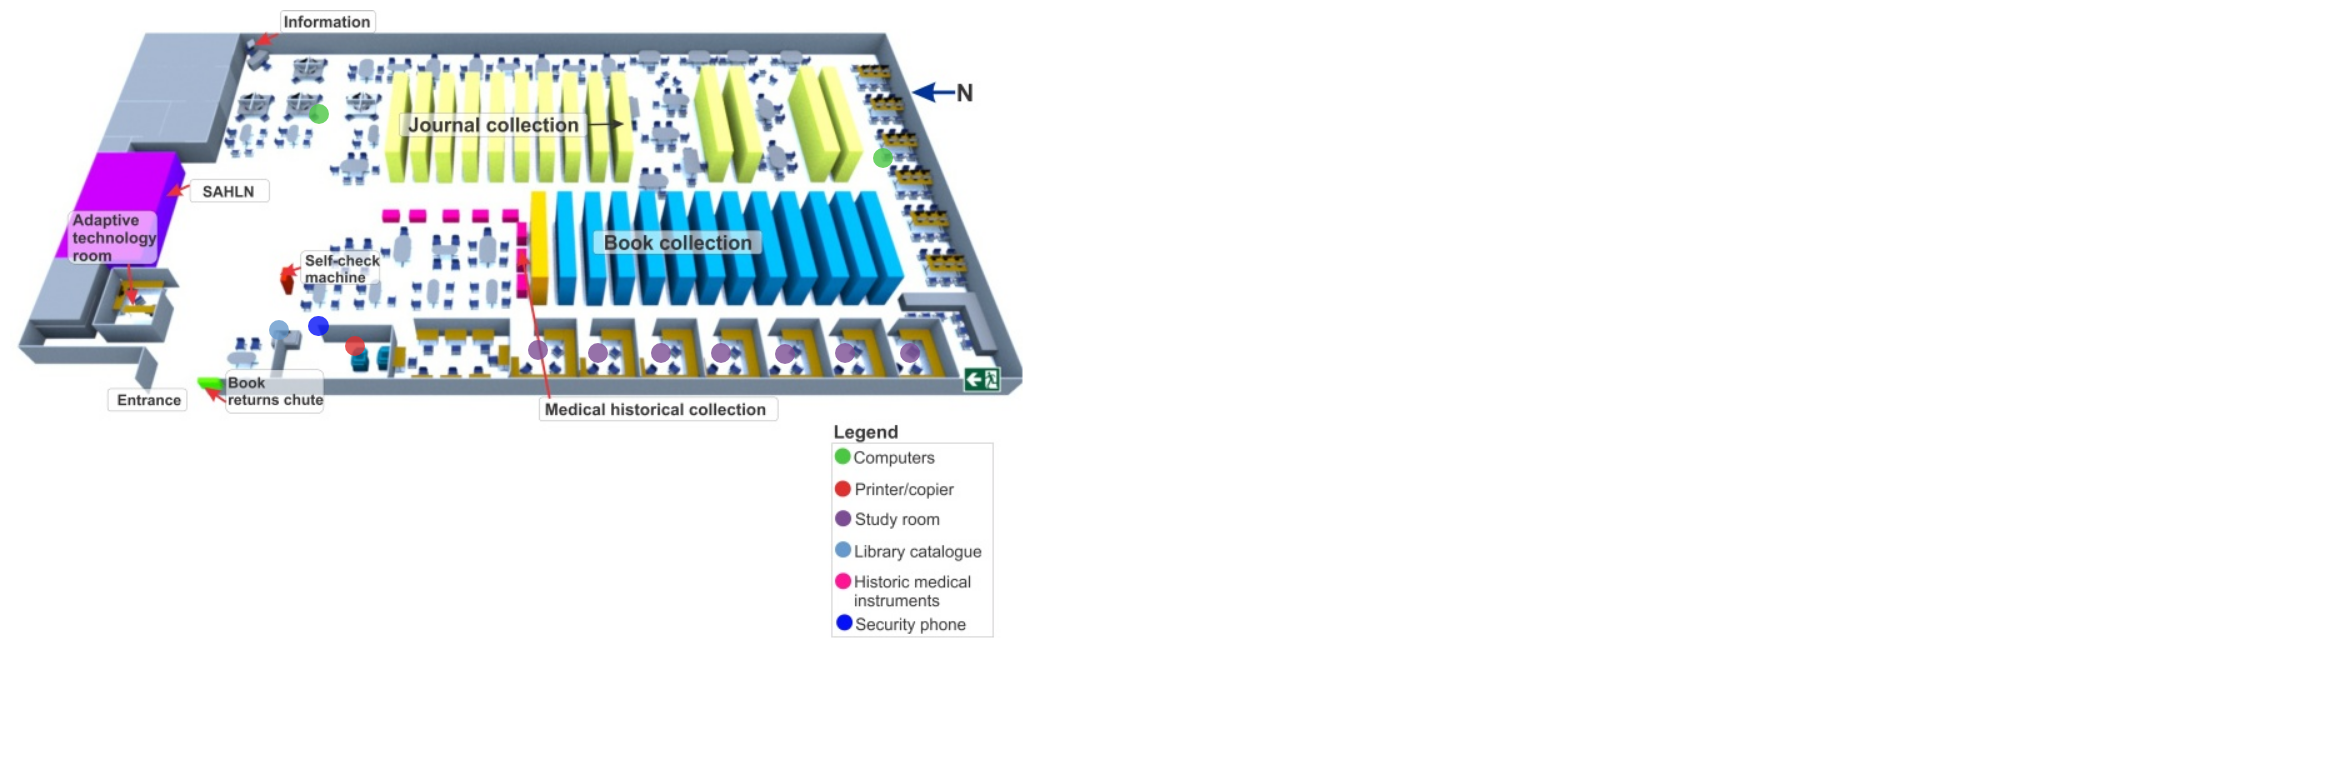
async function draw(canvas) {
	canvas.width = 2331;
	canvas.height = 757;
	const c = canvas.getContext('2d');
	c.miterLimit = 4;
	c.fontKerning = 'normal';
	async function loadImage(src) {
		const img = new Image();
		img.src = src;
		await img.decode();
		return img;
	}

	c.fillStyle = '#fff';
	c.fillRect(0, 0, 2331, 757);
	c.drawImage(await loadImage('img1.png'), 10, 10, 1013, 628);
	c.fillStyle = '#4cc744cc';
	c.beginPath();
	c.arc(319, 114, 10, 0, 2 * Math.PI);
	c.fill();
	c.beginPath();
	c.arc(883, 158, 10, 0, 2 * Math.PI);
	c.fill();
	c.fillStyle = '#6699cccc';
	c.beginPath();
	c.arc(279, 330, 10, 0, 2 * Math.PI);
	c.fill();
	c.fillStyle = '#0511f7cc';
	c.beginPath();
	c.roundRect(308, 316, 21, 20, 10);
	c.fill();
	c.fillStyle = '#df3030cc';
	c.beginPath();
	c.arc(355, 346, 10, 0, 2 * Math.PI);
	c.fill();
	c.fillStyle = '#7c4d94cc';
	c.beginPath();
	c.arc(538, 350, 10, 0, 2 * Math.PI);
	c.fill();
	c.beginPath();
	c.arc(598, 353, 10, 0, 2 * Math.PI);
	c.fill();
	c.beginPath();
	c.arc(661, 353, 10, 0, 2 * Math.PI);
	c.fill();
	c.beginPath();
	c.arc(721, 353, 10, 0, 2 * Math.PI);
	c.fill();
	c.beginPath();
	c.arc(785, 354, 10, 0, 2 * Math.PI);
	c.fill();
	c.beginPath();
	c.arc(845, 353, 10, 0, 2 * Math.PI);
	c.fill();
	c.beginPath();
	c.arc(910, 353, 10, 0, 2 * Math.PI);
	c.fill();
}

draw(document.querySelector('canvas'));
